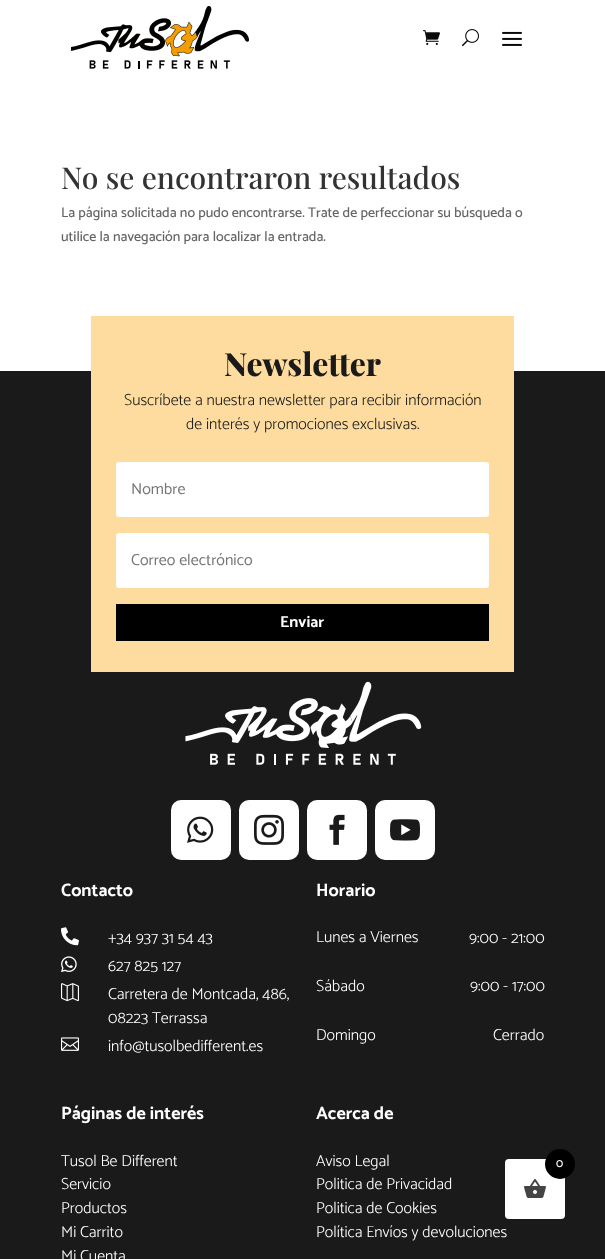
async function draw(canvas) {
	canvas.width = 605;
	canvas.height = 1259;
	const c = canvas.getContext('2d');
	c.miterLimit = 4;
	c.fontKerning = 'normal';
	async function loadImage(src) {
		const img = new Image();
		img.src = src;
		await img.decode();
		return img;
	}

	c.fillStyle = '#fff';
	c.fillRect(0, 0, 605, 1259);
	c.drawImage(await loadImage('img1.png'), 71, 6, 178, 63);
	c.drawImage(await loadImage('img2.png'), 423, 30, 17, 15);
	c.drawImage(await loadImage('img3.png'), 462, 29, 17, 18);
	c.drawImage(await loadImage('img4.png'), 502, 31, 20, 15);
	c.font = '500 30px Playfair Display';
	c.fillStyle = '#333';
	c.fillText('No se encontraron resultados', 61, 189);
	c.font = '500 14px Catamaran';
	c.fillStyle = '#666';
	c.fillText('La página solicitada no pudo encontrarse. Trate de perfeccionar su búsqueda o', 61, 217);
	c.fillText('utilice la navegación para localizar la entrada.', 61, 241);
	c.fillStyle = '#1a1a1a';
	c.fillRect(0, 371, 605, 888);
	c.fillStyle = '#fedc9f';
	c.fillRect(91, 316, 423, 356);
	c.font = '800 32px Playfair Display';
	c.fillStyle = '#1a1a1a';
	c.fillText('Newsletter', 224, 376);
	c.font = '300 16px Catamaran';
	c.fillText('Suscríbete a nuestra newsletter para recibir información', 124, 405);
	c.fillText('de interés y promociones exclusivas.', 186, 429);
	c.fillStyle = '#fff';
	c.beginPath();
	c.roundRect(116, 462, 373, 55, 3);
	c.fill();
	c.font = '16px Catamaran';
	c.fillStyle = '#757575';
	c.fillText('Nombre', 131, 494);
	c.fillStyle = '#fff';
	c.beginPath();
	c.roundRect(116, 533, 373, 55, 3);
	c.fill();
	c.fillStyle = '#757575';
	c.fillText('Correo electrónico', 131, 565);
	c.fillStyle = '#000';
	c.fillRect(116, 604, 373, 37);
	c.font = 'bold 16px Catamaran';
	c.fillStyle = '#fff';
	c.fillText('Enviar', 280, 627);
	c.drawImage(await loadImage('img5.png'), 185, 681, 237, 84);
	c.beginPath();
	c.roundRect(171, 800, 60, 60, 10);
	c.fill();
	c.drawImage(await loadImage('img6.png'), 187, 816, 27, 27);
	c.beginPath();
	c.roundRect(239, 800, 60, 60, 10);
	c.fill();
	c.drawImage(await loadImage('img7.png'), 254, 814, 30, 31);
	c.beginPath();
	c.roundRect(307, 800, 60, 60, 10);
	c.fill();
	c.drawImage(await loadImage('img8.png'), 329, 814, 16, 31);
	c.beginPath();
	c.roundRect(375, 800, 60, 60, 10);
	c.fill();
	c.drawImage(await loadImage('img9.png'), 390, 819, 30, 22);
	c.font = 'bold 18px Catamaran';
	c.fillText('Contacto', 61, 896);
	c.drawImage(await loadImage('img10.png'), 61, 927, 18, 19);
	c.font = '300 16px Catamaran';
	c.fillText('+34 937 31 54 43', 108, 943);
	c.drawImage(await loadImage('img11.png'), 61, 956, 16, 17);
	c.fillText('627 825 127', 108, 971);
	c.drawImage(await loadImage('img12.png'), 61, 983, 18, 19);
	c.fillText('Carretera de Montcada, 486,', 108, 999);
	c.fillText('08223 Terrassa', 108, 1023);
	c.drawImage(await loadImage('img13.png'), 61, 1037, 18, 14);
	c.fillText('info@tusolbedifferent.es', 108, 1051);
	c.font = 'bold 18px Catamaran';
	c.fillText('Horario', 316, 896);
	c.font = '300 16px Catamaran';
	for (const [text, x, y] of [
		['Lunes a Viernes', 316, 942],
		['9:00 - 21:00', 469, 943],
		['Sábado', 316, 991],
		['9:00 - 17:00', 470, 991],
		['Domingo', 316, 1040],
		['Cerrado', 493, 1040],
	]) {
		c.fillText(text, x, y);
	}
	c.font = 'bold 18px Catamaran';
	c.fillText('Páginas de interés', 61, 1119);
	c.font = '300 16px Catamaran';
	for (const [text, x, y] of [
		['Tusol Be Different', 61, 1166],
		['Servicio', 61, 1189],
		['Productos', 61, 1213],
		['Mi Carrito', 61, 1237],
		['Mi Cuenta', 61, 1261],
	]) {
		c.fillText(text, x, y);
	}
	c.font = 'bold 18px Catamaran';
	c.fillText('Acerca de', 316, 1119);
	c.font = '300 16px Catamaran';
	for (const [text, x, y] of [
		['Aviso Legal', 316, 1166],
		['Politica de Privacidad', 316, 1189],
		['Politica de Cookies', 316, 1213],
		['Política Envíos y devoluciones', 316, 1237],
	]) {
		c.fillText(text, x, y);
	}
	c.beginPath();
	c.roundRect(505, 1159, 60, 60, 4);
	c.fill();
	c.fillStyle = '#000';
	c.beginPath();
	c.arc(560, 1164, 15, 0, 2 * Math.PI);
	c.fill();
	c.font = '500 12px Catamaran';
	c.fillStyle = '#fff';
	c.fillText('0', 556, 1167);
	c.drawImage(await loadImage('img14.png'), 524, 1179, 22, 19);
}

draw(document.querySelector('canvas'));
